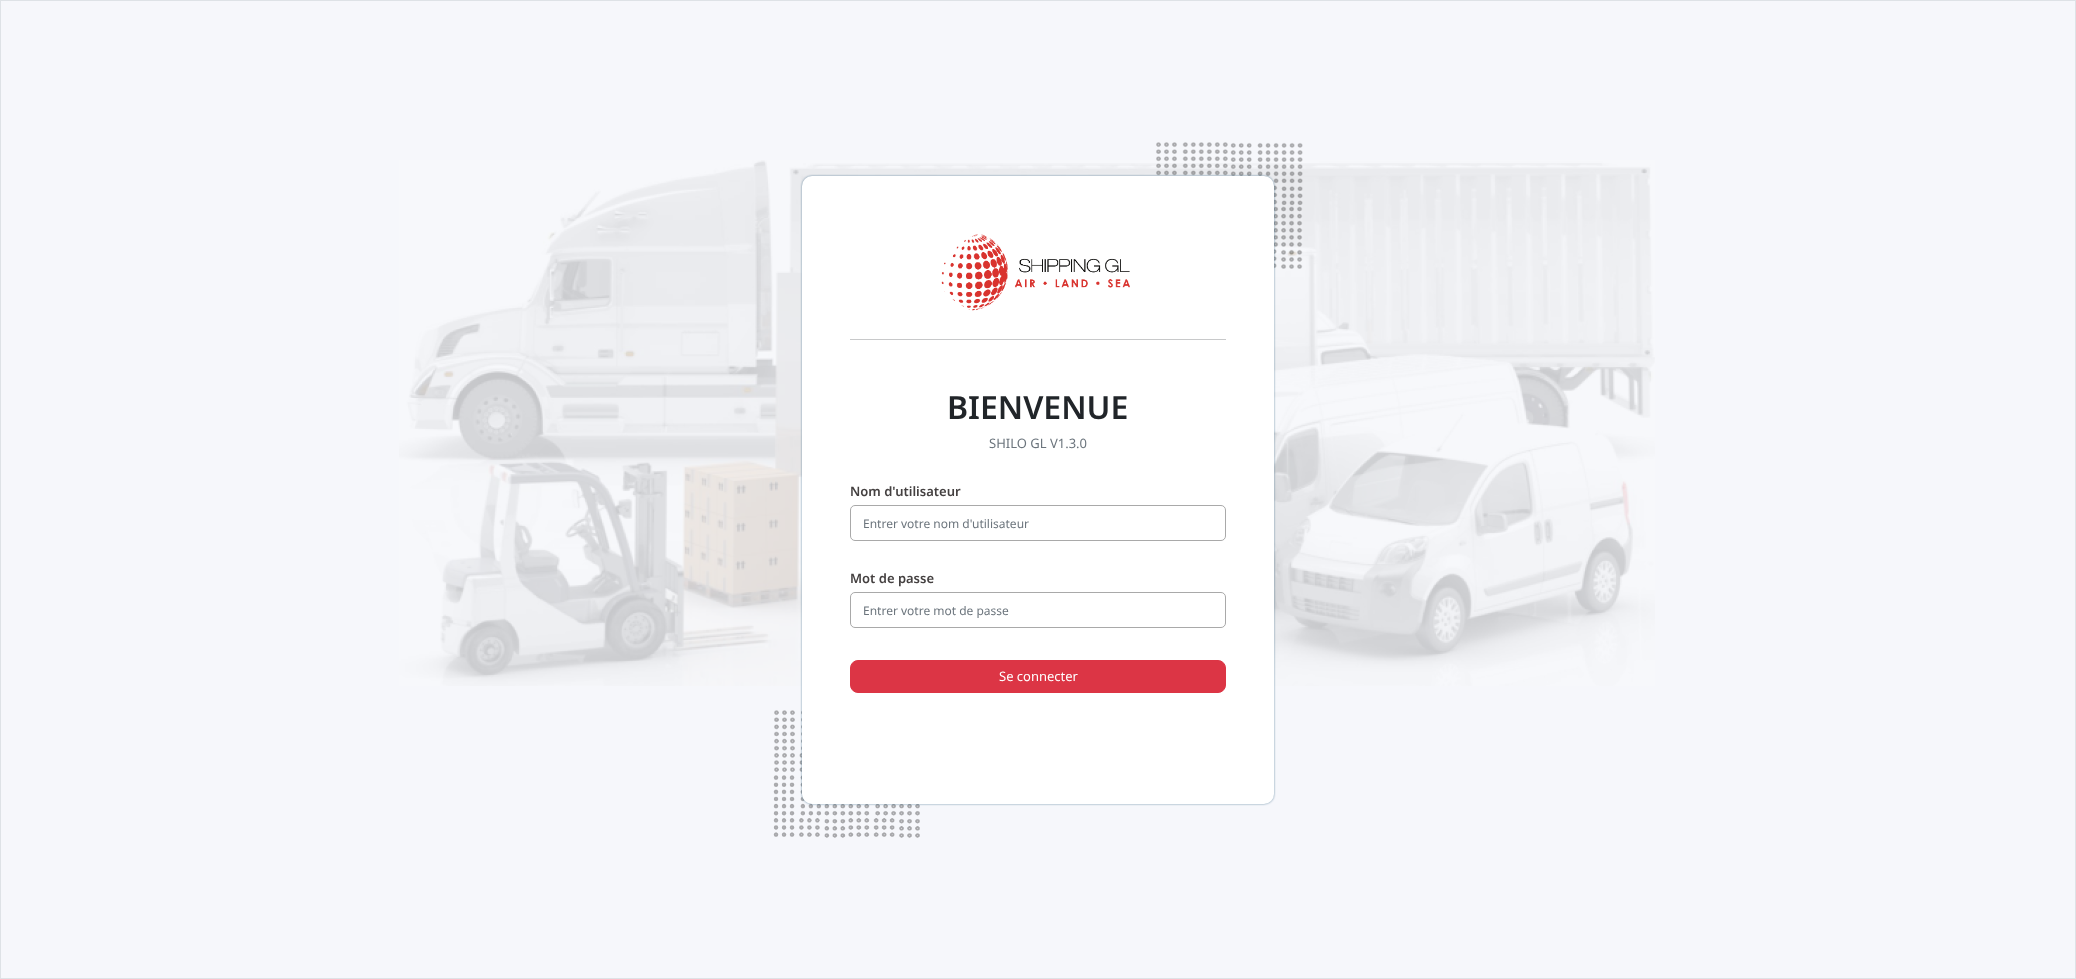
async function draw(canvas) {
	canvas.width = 2076;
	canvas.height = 979;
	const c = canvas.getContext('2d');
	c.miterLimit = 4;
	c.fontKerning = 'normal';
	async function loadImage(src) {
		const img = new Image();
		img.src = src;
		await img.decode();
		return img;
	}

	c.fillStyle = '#f6f7fb';
	c.fillRect(0, 0, 2076, 979);
	c.drawImage(await loadImage('img1.png'), 399, 160, 1256, 526);
	c.strokeStyle = '#dee2e6';
	c.strokeRect(0.5, 0.5, 2075, 978);
	c.drawImage(await loadImage('img2.png'), 1156, 142, 147, 127);
	c.drawImage(await loadImage('img4.png'), 773, 710, 147, 128);
	c.fillStyle = '#003c6487';
	c.filter = 'blur(1px)';
	c.beginPath();
	c.roundRect(802, 176, 472, 628, 10);
	c.fill();
	c.filter = 'none';
	c.fillStyle = '#fff';
	c.beginPath();
	c.roundRect(802, 176, 472, 628, 10);
	c.fill();
	c.drawImage(await loadImage('img3.png'), 941, 234, 189, 77);
	c.fillStyle = '#c8c9ca';
	c.fillRect(850, 339, 376, 1);
	c.font = '600 32px Noto Sans';
	c.fillStyle = '#212529';
	c.fillText('BIENVENUE', 947, 419);
	c.font = '13px Noto Sans';
	c.fillStyle = '#6c757d';
	c.fillText('SHILO GL V1.3.0', 989, 448);
	c.font = '600 13px Noto Sans';
	c.fillStyle = '#444040';
	c.fillText('Nom d\'utilisateur', 850, 496);
	c.beginPath();
	c.roundRect(850.5, 505.5, 375, 35, 4.5);
	c.strokeStyle = '#a9a9a9';
	c.stroke();
	c.font = '12px Noto Sans';
	c.fillStyle = '#6c757d';
	c.fillText('Entrer votre nom d\'utilisateur', 863, 528);
	c.font = '600 13px Noto Sans';
	c.fillStyle = '#444040';
	c.fillText('Mot de passe', 850, 583);
	c.beginPath();
	c.roundRect(850.5, 592.5, 375, 35, 4.5);
	c.stroke();
	c.font = '12px Noto Sans';
	c.fillStyle = '#6c757d';
	c.fillText('Entrer votre mot de passe', 863, 615);
	c.fillStyle = '#dc3545';
	c.beginPath();
	c.roundRect(850.5, 660.5, 375, 32, 7.5);
	c.fill();
	c.strokeStyle = '#dc3545';
	c.stroke();
	c.font = '13px Noto Sans';
	c.fillStyle = '#fff';
	c.fillText('Se connecter', 999, 681);
}

draw(document.querySelector('canvas'));
